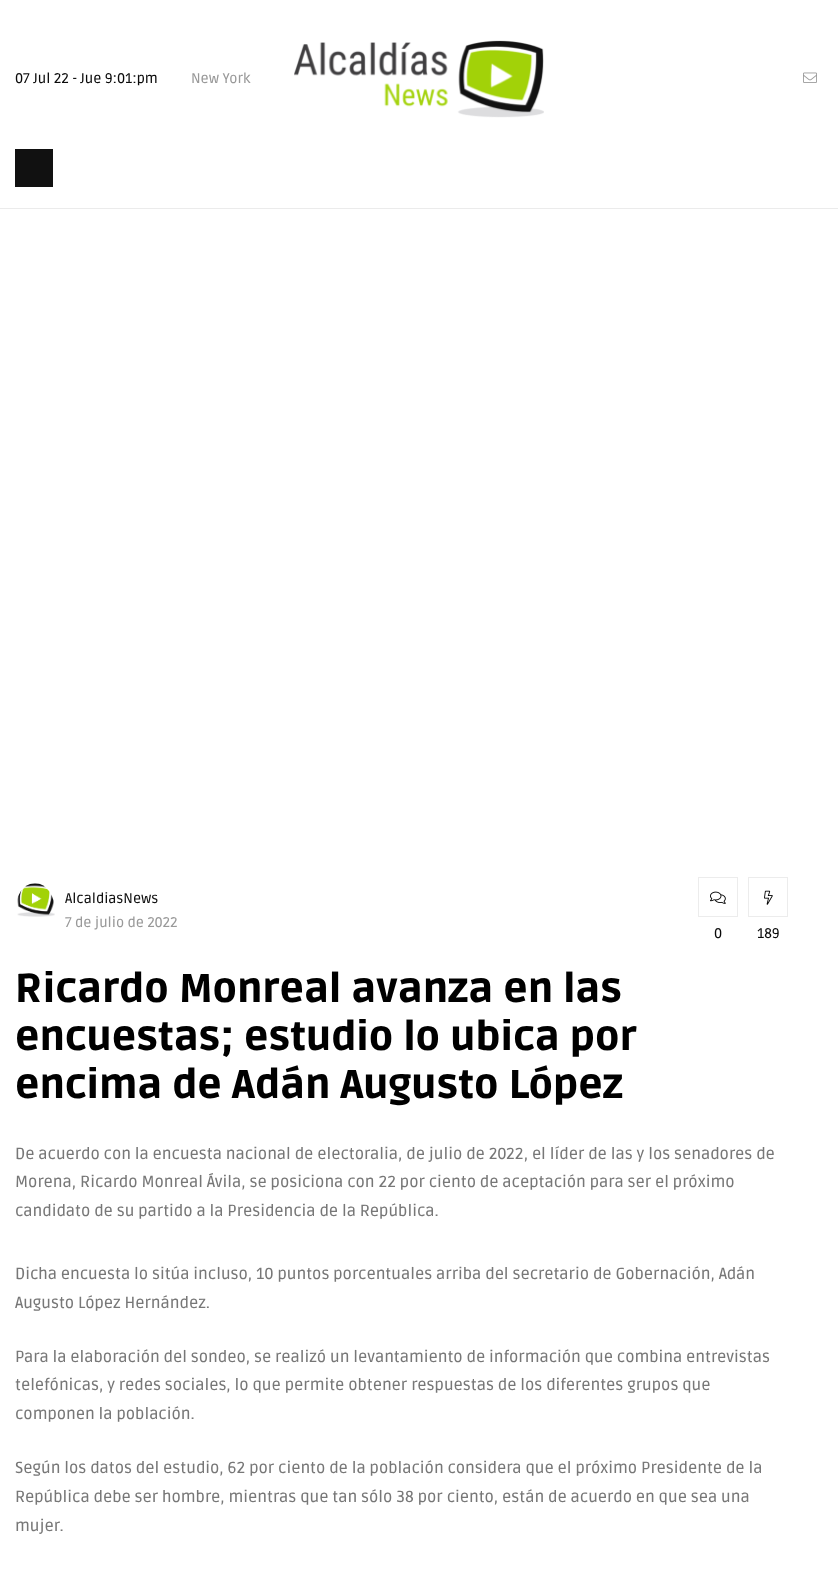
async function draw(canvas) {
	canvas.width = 838;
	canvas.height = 1576;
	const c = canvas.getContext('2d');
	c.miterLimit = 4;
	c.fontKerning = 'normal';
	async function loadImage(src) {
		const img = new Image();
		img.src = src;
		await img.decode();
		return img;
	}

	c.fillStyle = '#fff';
	c.fillRect(0, 0, 838, 1576);
	c.fillStyle = '#ebebeb';
	c.fillRect(0, 208, 838, 1);
	c.font = '500 14px Ruda';
	c.fillStyle = '#0a0a0a';
	c.fillText('07 Jul 22 - Jue 9:01:pm', 15, 83);
	c.fillStyle = '#999';
	c.fillText('New York', 191, 83);
	c.drawImage(await loadImage('img1.png'), 294, 40, 250, 78);
	c.drawImage(await loadImage('img2.png'), 803, 72, 14, 11);
	c.fillStyle = '#111';
	c.fillRect(15, 149, 38, 38);
	c.drawImage(await loadImage('img3.png'), 17, 883, 38, 34);
	c.fillText('AlcaldiasNews', 65, 903);
	c.fillStyle = '#999';
	c.fillText('7 de julio de 2022', 65, 927);
	c.strokeStyle = '#ececec';
	c.strokeRect(698.5, 877.5, 39, 39);
	c.drawImage(await loadImage('img4.png'), 710, 891, 16, 13);
	c.fillStyle = '#0a0a0a';
	c.fillText('0', 714, 938);
	c.strokeRect(748.5, 877.5, 39, 39);
	c.drawImage(await loadImage('img5.png'), 764, 890, 9, 15);
	c.fillText('189', 757, 938);
	c.font = '900 40px Ruda';
	c.fillStyle = '#000';
	for (const [text, x, y] of [
		['Ricardo Monreal avanza en las', 15, 1002],
		['encuestas; estudio lo ubica por', 15, 1050],
		['encima de Adán Augusto López', 15, 1098],
	]) {
		c.fillText(text, x, y);
	}
	c.font = '500 16px Ruda';
	c.fillStyle = '#777';
	for (const [text, x, y] of [
		['De acuerdo con la encuesta nacional de electoralia, de julio de 2022, el líder de las y los senadores de', 15, 1159],
		['Morena, Ricardo Monreal Ávila, se posiciona con 22 por ciento de aceptación para ser el próximo', 15, 1187],
		['candidato de su partido a la Presidencia de la República.', 15, 1216],
		['Dicha encuesta lo sitúa incluso, 10 puntos porcentuales arriba del secretario de Gobernación, Adán', 15, 1279],
		['Augusto López Hernández.', 15, 1308],
		['Para la elaboración del sondeo, se realizó un levantamiento de información que combina entrevistas', 15, 1362],
		['telefónicas, y redes sociales, lo que permite obtener respuestas de los diferentes grupos que', 15, 1390],
		['componen la población.', 15, 1419],
		['Según los datos del estudio, 62 por ciento de la población considera que el próximo Presidente de la', 15, 1473],
		['República debe ser hombre, mientras que tan sólo 38 por ciento, están de acuerdo en que sea una', 15, 1502],
		['mujer.', 15, 1531],
	]) {
		c.fillText(text, x, y);
	}
}

draw(document.querySelector('canvas'));
